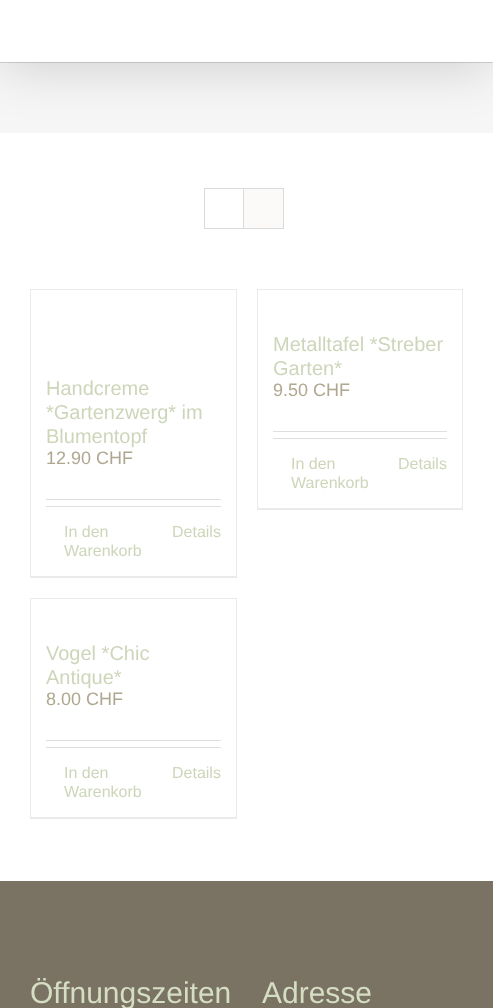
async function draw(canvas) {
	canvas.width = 493;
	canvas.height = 1008;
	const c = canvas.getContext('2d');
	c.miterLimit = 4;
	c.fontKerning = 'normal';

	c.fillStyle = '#f6f6f6';
	c.fillRect(0, 0, 493, 1008);
	c.fillStyle = '#d2d3d4';
	c.fillRect(0, 62, 493, 1);
	c.fillStyle = '#fff';
	c.fillRect(0, 133, 493, 748);
	c.fillStyle = '#00000024';
	c.filter = 'blur(25px)';
	c.beginPath();
	c.rect(2, 12, 489, 58);
	c.fill();
	c.filter = 'none';
	c.fillStyle = '#fff';
	c.fillRect(0, 0, 493, 62);
	c.strokeStyle = '#dbdbdb';
	c.strokeRect(204.5, 188.5, 79, 40);
	for (const [x, y, w, h, color] of [
		[243, 189, 1, 39, '#dbdbdb'],
		[244, 189, 39, 39, '#fbfaf9'],
		[30, 289, 207, 1, '#ebeaea'],
		[236, 289, 1, 289, '#ebeaea'],
		[30, 576, 207, 2, '#ebeaea'],
		[30, 289, 1, 289, '#ebeaea'],
	]) {
		c.fillStyle = color;
		c.fillRect(x, y, w, h);
	}
	c.font = '20px Liberation Sans';
	c.fillStyle = '#cdd6ba';
	for (const [text, x, y] of [
		['Handcreme', 46, 395],
		['*Gartenzwerg* im', 46, 419],
		['Blumentopf', 46, 443],
	]) {
		c.fillText(text, x, y);
	}
	c.font = '18px Liberation Sans';
	c.fillStyle = '#b0a791';
	c.fillText('12.90 CHF', 46, 464);
	c.fillStyle = '#e0dede';
	c.fillRect(46, 499, 175, 1);
	c.fillRect(46, 506, 175, 1);
	c.font = '16px Liberation Sans';
	c.fillStyle = '#cdd6ba';
	for (const [text, x, y] of [
		['In den', 64, 537],
		['Warenkorb', 64, 556],
		['Details', 172, 537],
	]) {
		c.fillText(text, x, y);
	}
	for (const [x, y, w, h, color] of [
		[257, 289, 206, 1, '#ebeaea'],
		[462, 289, 1, 221, '#ebeaea'],
		[257, 508, 206, 2, '#ebeaea'],
		[257, 289, 1, 221, '#ebeaea'],
	]) {
		c.fillStyle = color;
		c.fillRect(x, y, w, h);
	}
	c.font = '20px Liberation Sans';
	c.fillStyle = '#cdd6ba';
	c.fillText('Metalltafel *Streber', 273, 351);
	c.fillText('Garten*', 273, 375);
	c.font = '18px Liberation Sans';
	c.fillStyle = '#b0a791';
	c.fillText('9.50 CHF', 273, 396);
	c.fillStyle = '#e0dede';
	c.fillRect(273, 431, 174, 1);
	c.fillRect(273, 438, 174, 1);
	c.font = '16px Liberation Sans';
	c.fillStyle = '#cdd6ba';
	for (const [text, x, y] of [
		['In den', 291, 469],
		['Warenkorb', 291, 488],
		['Details', 398, 469],
	]) {
		c.fillText(text, x, y);
	}
	for (const [x, y, w, h, color] of [
		[30, 598, 207, 1, '#ebeaea'],
		[236, 598, 1, 221, '#ebeaea'],
		[30, 817, 207, 2, '#ebeaea'],
		[30, 598, 1, 221, '#ebeaea'],
	]) {
		c.fillStyle = color;
		c.fillRect(x, y, w, h);
	}
	c.font = '20px Liberation Sans';
	c.fillStyle = '#cdd6ba';
	c.fillText('Vogel *Chic', 46, 660);
	c.fillText('Antique*', 46, 684);
	c.font = '18px Liberation Sans';
	c.fillStyle = '#b0a791';
	c.fillText('8.00 CHF', 46, 705);
	c.fillStyle = '#e0dede';
	c.fillRect(46, 740, 175, 1);
	c.fillRect(46, 747, 175, 1);
	c.font = '16px Liberation Sans';
	c.fillStyle = '#cdd6ba';
	for (const [text, x, y] of [
		['In den', 64, 778],
		['Warenkorb', 64, 797],
		['Details', 172, 778],
	]) {
		c.fillText(text, x, y);
	}
	c.fillStyle = '#7a7263';
	c.fillRect(0, 881, 493, 127);
	c.font = '30px Liberation Sans';
	c.fillStyle = '#d5dec2';
	c.fillText('Öffnungszeiten', 30, 1003);
	c.fillText('Adresse', 262, 1003);
}

draw(document.querySelector('canvas'));
